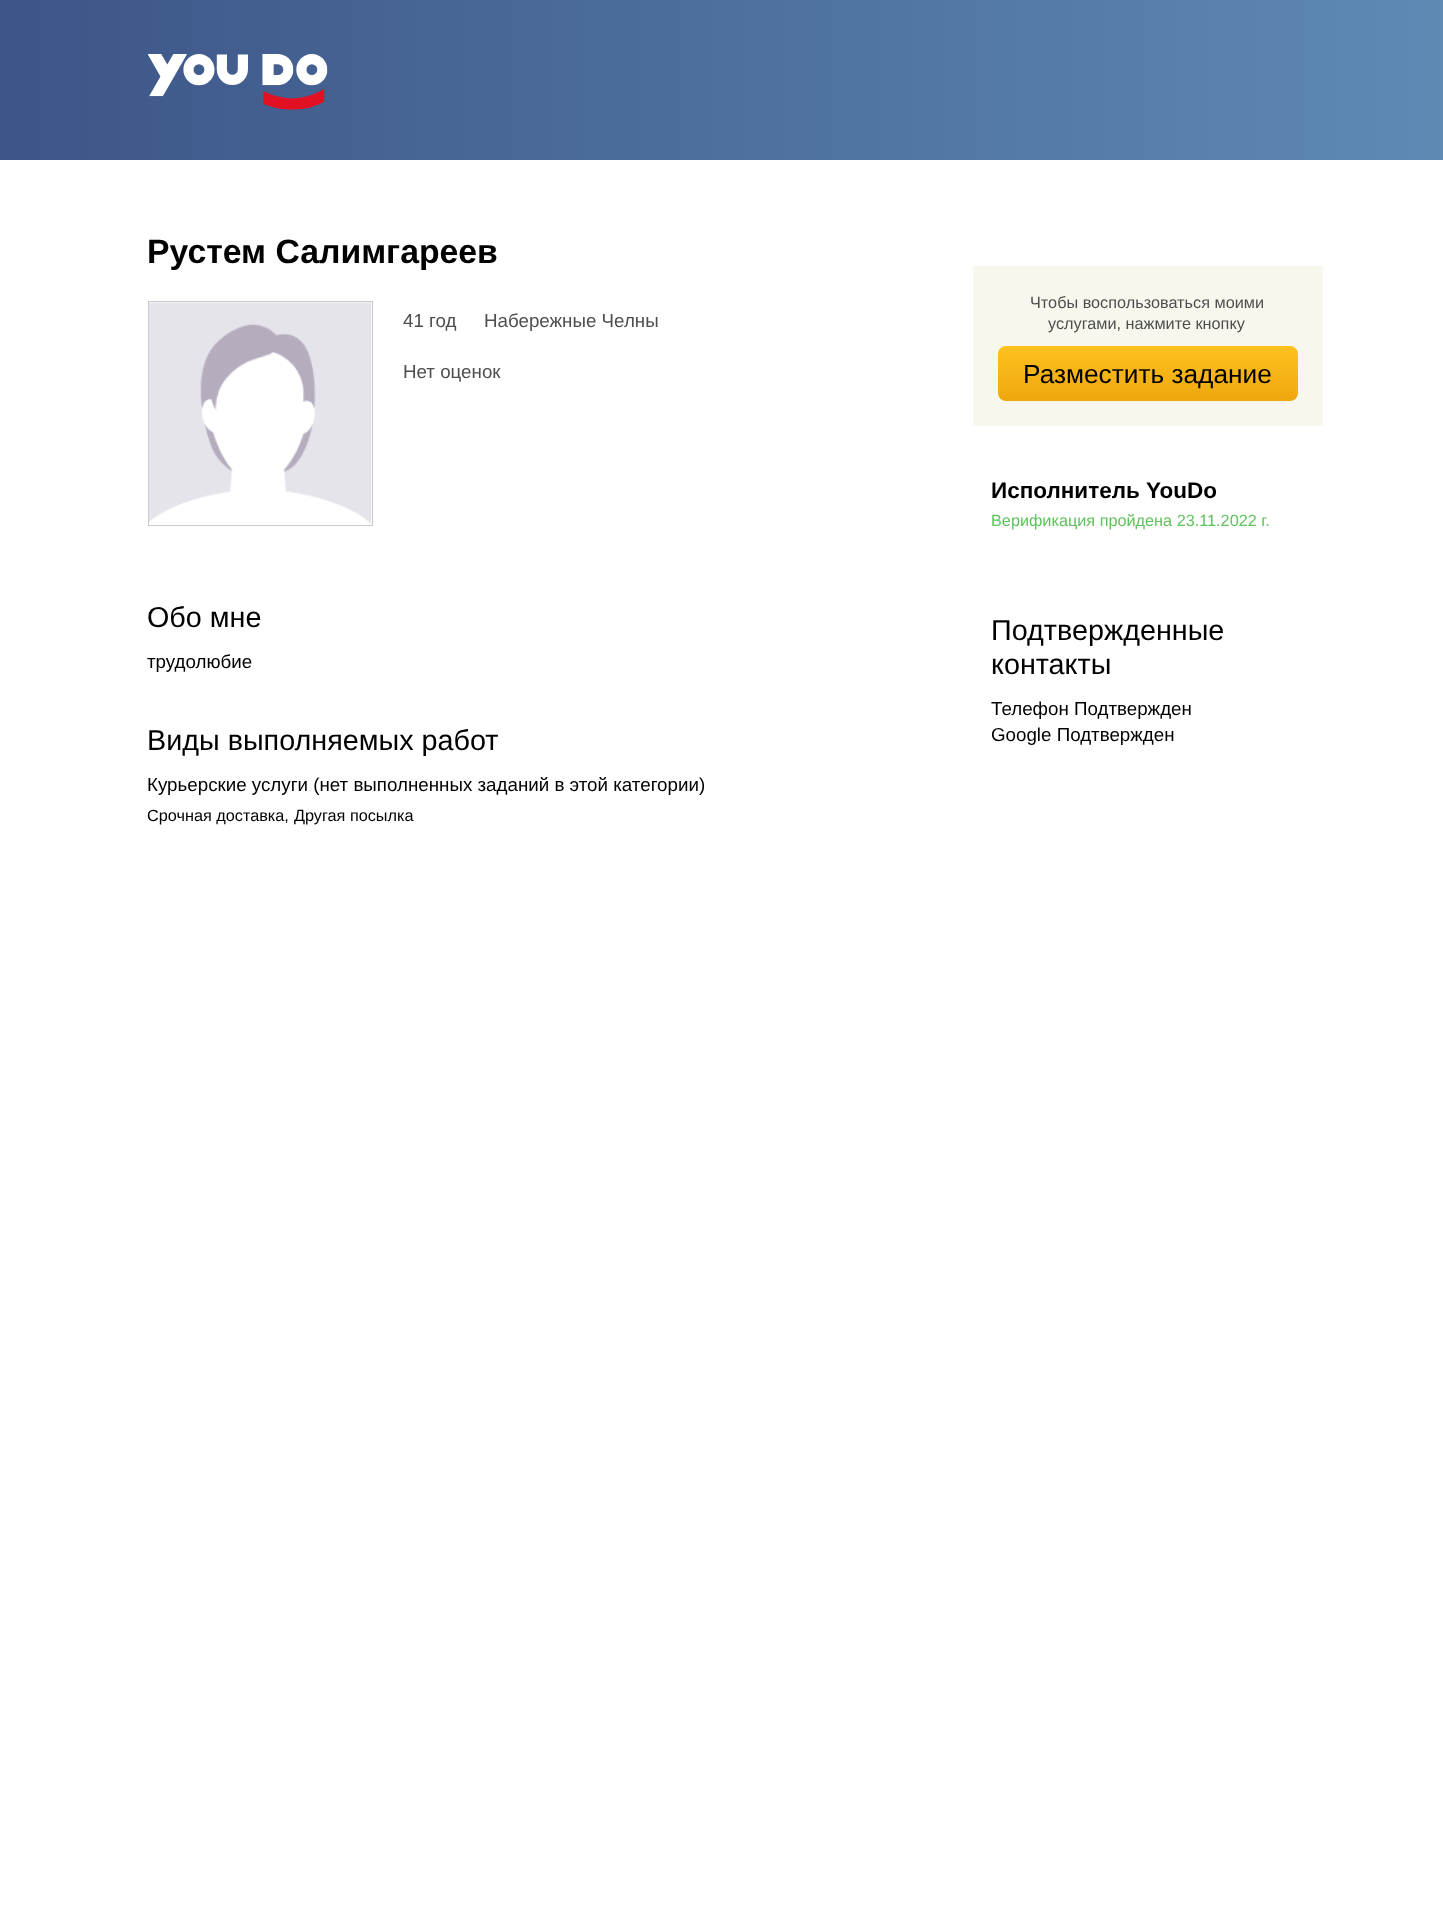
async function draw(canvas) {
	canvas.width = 1443;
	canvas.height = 1930;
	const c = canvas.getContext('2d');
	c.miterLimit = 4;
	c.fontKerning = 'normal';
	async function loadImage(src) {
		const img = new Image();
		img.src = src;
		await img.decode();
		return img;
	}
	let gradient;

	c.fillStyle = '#fff';
	c.fillRect(0, 0, 1443, 1930);
	gradient = c.createLinearGradient(0, 80, 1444, 80);
	gradient.addColorStop(0, '#3d5588');
	gradient.addColorStop(1, '#5e8ab4');
	c.fillStyle = gradient;
	c.fillRect(0, 0, 1443, 160);
	c.drawImage(await loadImage('img1.png'), 148, 54, 180, 56);
	c.font = 'bold 33.75px Liberation Sans';
	c.fillStyle = '#000';
	c.fillText('Рустем Салимгареев', 147, 263);
	c.drawImage(await loadImage('img2.png'), 149, 302, 223, 222);
	c.strokeStyle = '#cacaca';
	c.strokeRect(148.5, 301.5, 224, 224);
	c.font = '18.75px Liberation Sans';
	c.fillStyle = '#4e4e4e';
	for (const [text, x, y] of [
		['41 год', 403, 327],
		['Набережные Челны', 484, 327],
		['Нет оценок', 403, 378],
	]) {
		c.fillText(text, x, y);
	}
	c.font = '28.75px Liberation Sans';
	c.fillStyle = '#000';
	c.fillText('Обо мне', 147, 627);
	c.font = '18.75px Liberation Sans';
	c.fillText('трудолюбие', 147, 668);
	c.font = '28.75px Liberation Sans';
	c.fillText('Виды выполняемых работ', 147, 750);
	c.font = '18.75px Liberation Sans';
	c.fillText('Курьерские услуги (нет выполненных заданий в этой категории)', 147, 791);
	c.font = '16.25px Liberation Sans';
	c.fillText('Срочная доставка,', 147, 821);
	c.fillText('Другая посылка', 294, 821);
	c.fillStyle = '#f8f7ee';
	c.fillRect(973, 266, 350, 160);
	c.fillStyle = '#4e4e4e';
	c.fillText('Чтобы воспользоваться моими', 1030, 308);
	c.fillText('услугами, нажмите кнопку', 1048, 329);
	gradient = c.createLinearGradient(1148, 346, 1148, 401);
	gradient.addColorStop(0, '#ffc21f');
	gradient.addColorStop(1, '#eea70e');
	c.fillStyle = gradient;
	c.beginPath();
	c.roundRect(998, 346, 300, 55, 8);
	c.fill();
	c.font = '26.25px Liberation Sans';
	c.fillStyle = '#000';
	c.fillText('Разместить задание', 1023, 383);
	c.font = 'bold 22.5px Liberation Sans';
	c.fillText('Исполнитель YouDo', 991, 498);
	c.font = '16.25px Liberation Sans';
	c.fillStyle = '#5ec35b';
	c.fillText('Верификация пройдена 23.11.2022 г.', 991, 526);
	c.font = '28.75px Liberation Sans';
	c.fillStyle = '#000';
	c.fillText('Подтвержденные', 991, 640);
	c.fillText('контакты', 991, 674);
	c.font = '18.75px Liberation Sans';
	c.fillText('Телефон Подтвержден', 991, 715);
	c.fillText('Google Подтвержден', 991, 741);
}

draw(document.querySelector('canvas'));
